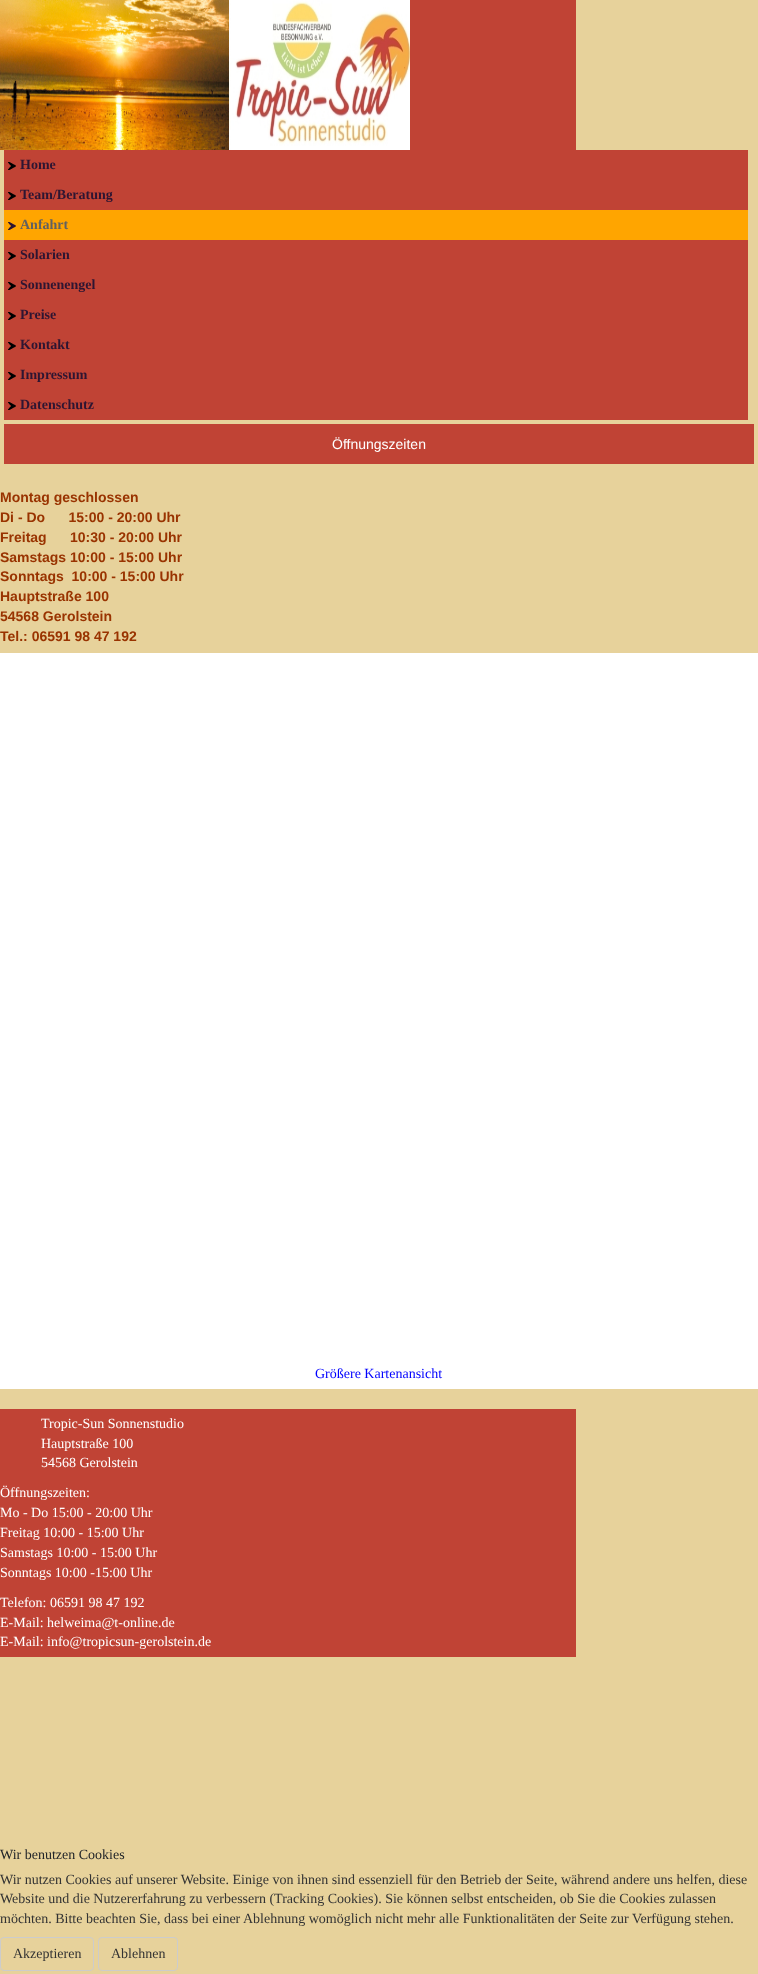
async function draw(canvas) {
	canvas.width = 758;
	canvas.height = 1974;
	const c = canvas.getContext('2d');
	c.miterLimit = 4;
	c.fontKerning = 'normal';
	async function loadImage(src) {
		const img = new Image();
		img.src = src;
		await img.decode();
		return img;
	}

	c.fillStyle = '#e7d29b';
	c.fillRect(0, 0, 758, 1974);
	c.fillStyle = '#c04335';
	c.fillRect(410, 0, 166, 150);
	c.drawImage(await loadImage('img1.png'), 0, 0, 410, 150);
	c.fillRect(4, 150, 744, 60);
	c.drawImage(await loadImage('img2.png'), 8, 162, 8, 8);
	c.font = 'bold 14px Liberation Serif';
	c.fillStyle = '#2e1532';
	c.fillText('Home', 20, 169);
	c.drawImage(await loadImage('img2.png'), 8, 192, 8, 8);
	c.fillText('Team/Beratung', 20, 199);
	c.fillStyle = '#ffa500';
	c.fillRect(4, 210, 744, 30);
	c.drawImage(await loadImage('img3.png'), 8, 222, 8, 8);
	c.fillStyle = '#616161';
	c.fillText('Anfahrt', 20, 229);
	c.fillStyle = '#c04335';
	c.fillRect(4, 240, 744, 180);
	c.drawImage(await loadImage('img2.png'), 8, 252, 8, 8);
	c.fillStyle = '#2e1532';
	c.fillText('Solarien', 20, 259);
	c.drawImage(await loadImage('img2.png'), 8, 282, 8, 8);
	c.fillText('Sonnenengel', 20, 289);
	c.drawImage(await loadImage('img2.png'), 8, 312, 8, 8);
	c.fillText('Preise', 20, 319);
	c.drawImage(await loadImage('img2.png'), 8, 342, 8, 8);
	c.fillText('Kontakt', 20, 349);
	c.drawImage(await loadImage('img2.png'), 8, 372, 8, 8);
	c.fillText('Impressum', 20, 379);
	c.drawImage(await loadImage('img2.png'), 8, 402, 8, 8);
	c.fillText('Datenschutz', 20, 409);
	c.fillStyle = '#c04335';
	c.fillRect(4, 424, 750, 40);
	c.font = '14px Liberation Sans';
	c.fillStyle = '#fff';
	c.fillText('Öffnungszeiten', 332, 449);
	c.font = 'bold 14px Liberation Sans';
	c.fillStyle = '#930';
	for (const [text, x, y] of [
		['Montag geschlossen', 0, 502],
		['Di - Do      15:00 - 20:00 Uhr', 0, 522],
		['Freitag      10:30 - 20:00 Uhr', 0, 542],
		['Samstags 10:00 - 15:00 Uhr', 0, 562],
		['Sonntags  10:00 - 15:00 Uhr', 0, 581],
		['Hauptstraße 100', 0, 601],
		['54568 Gerolstein', 0, 621],
		['Tel.: 06591 98 47 192', 0, 641],
	]) {
		c.fillText(text, x, y);
	}
	c.fillStyle = '#fff';
	c.fillRect(0, 653, 758, 736);
	c.font = '14px Liberation Serif';
	c.fillStyle = '#00f';
	c.fillText('Größere Kartenansicht', 315, 1378);
	c.fillStyle = '#c04335';
	c.fillRect(0, 1409, 576, 248);
	c.fillStyle = '#fff';
	for (const [text, x, y] of [
		['Tropic-Sun Sonnenstudio', 41, 1428],
		['Hauptstraße 100', 41, 1448],
		['54568 Gerolstein', 41, 1467],
		['Öffnungszeiten:', 0, 1497],
		['Mo - Do 15:00 - 20:00 Uhr', 0, 1517],
		['Freitag 10:00 - 15:00 Uhr', 0, 1537],
		['Samstags 10:00 - 15:00 Uhr', 0, 1557],
		['Sonntags 10:00 -15:00 Uhr', 0, 1577],
		['Telefon: 06591 98 47 192', 0, 1607],
		['E-Mail: helweima@t-online.de', 0, 1627],
		['E-Mail: info@tropicsun-gerolstein.de', 0, 1646],
	]) {
		c.fillText(text, x, y);
	}
	c.fillStyle = '#212529';
	c.fillText('Wir benutzen Cookies', 0, 1859);
	c.fillStyle = '#333';
	for (const [text, x, y] of [
		['Wir nutzen Cookies auf unserer Website. Einige von ihnen sind essenziell für den Betrieb der Seite, während andere uns helfen, diese', 0, 1884],
		['Website und die Nutzererfahrung zu verbessern (Tracking Cookies). Sie können selbst entscheiden, ob Sie die Cookies zulassen', 0, 1903],
		['möchten. Bitte beachten Sie, dass bei einer Ablehnung womöglich nicht mehr alle Funktionalitäten der Seite zur Verfügung stehen.', 0, 1923],
	]) {
		c.fillText(text, x, y);
	}
	c.beginPath();
	c.roundRect(0.5, 1937.5, 93, 33, 3.5);
	c.strokeStyle = '#ccc';
	c.stroke();
	c.fillText('Akzeptieren', 13, 1958);
	c.beginPath();
	c.roundRect(98.5, 1937.5, 79, 33, 3.5);
	c.stroke();
	c.fillText('Ablehnen', 111, 1958);
}

draw(document.querySelector('canvas'));
